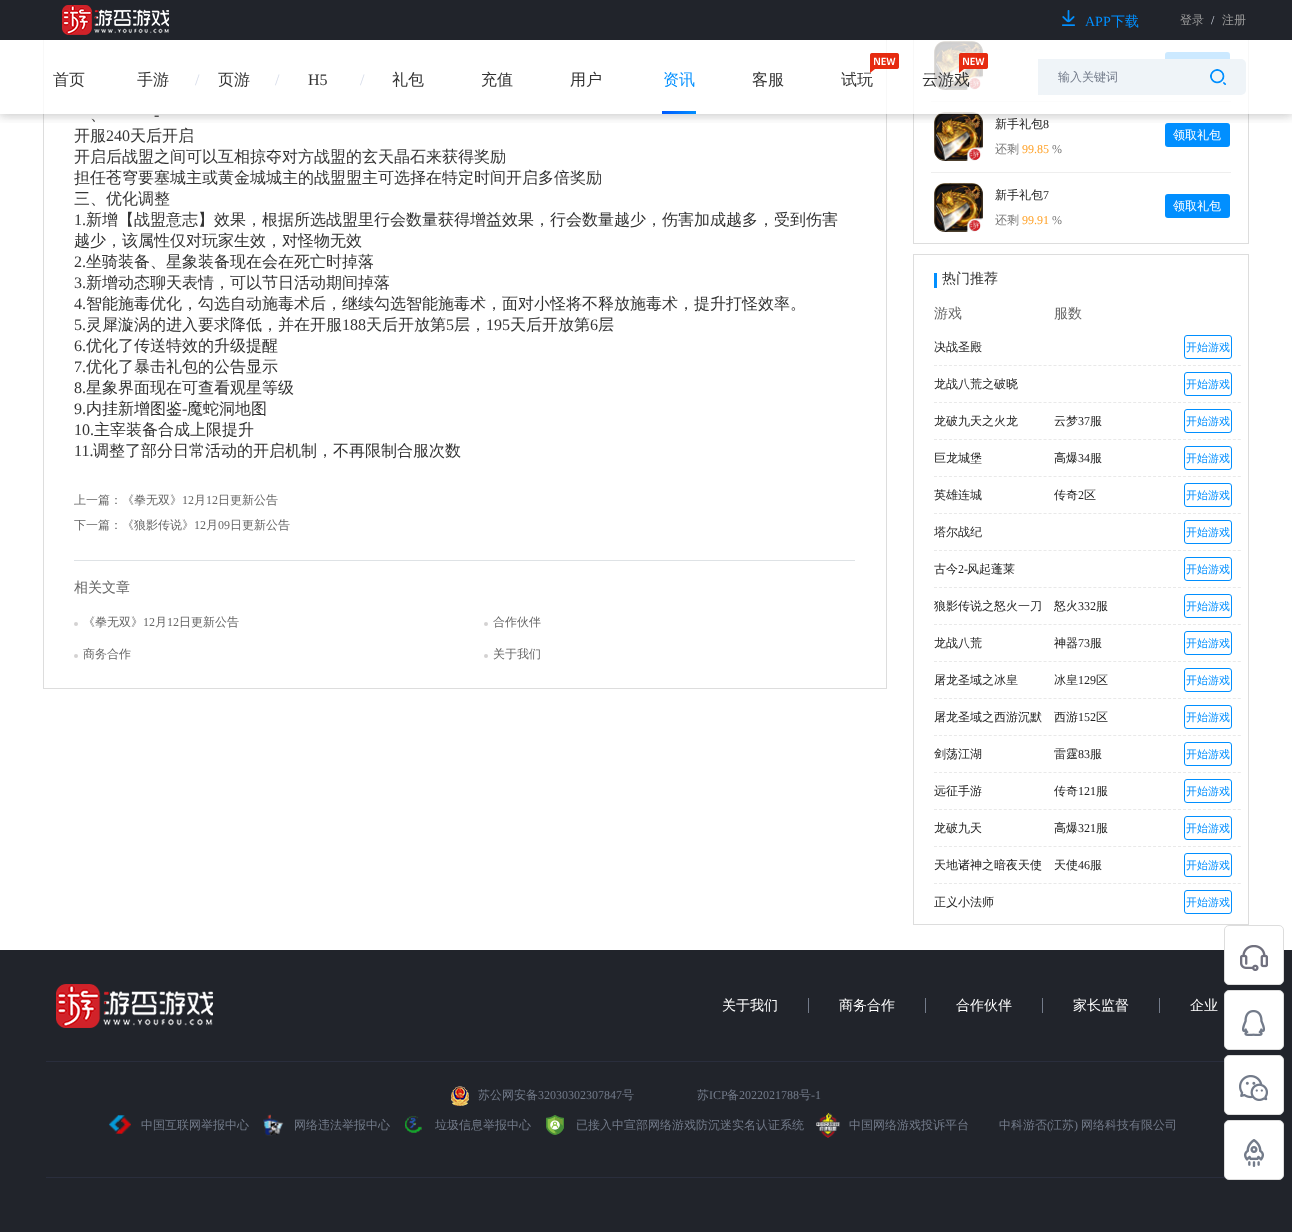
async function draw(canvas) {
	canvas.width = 1292;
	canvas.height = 1232;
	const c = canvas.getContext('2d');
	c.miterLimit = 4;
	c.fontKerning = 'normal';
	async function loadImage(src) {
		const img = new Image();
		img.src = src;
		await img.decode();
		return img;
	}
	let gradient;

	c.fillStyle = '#fff';
	c.fillRect(0, 0, 1292, 1232);
	c.strokeStyle = '#ddd';
	c.strokeRect(43.5, -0.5, 843, 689);
	c.strokeRect(913.5, -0.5, 335, 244);
	c.fillStyle = '#eee';
	c.fillRect(931, 101, 300, 1);
	c.drawImage(await loadImage('img6.png'), 934, 41, 49, 49);
	c.fillStyle = '#018fff';
	c.beginPath();
	c.roundRect(1165, 52, 65, 24, 3);
	c.fill();
	c.drawImage(await loadImage('img6.png'), 934, 112, 49, 49);
	c.beginPath();
	c.roundRect(1165, 123, 65, 24, 3);
	c.fill();
	c.save();
	c.beginPath();
	c.rect(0, 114, 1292, 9);
	c.clip();
	c.fillStyle = '#00000033';
	c.filter = 'blur(6px)';
	c.beginPath();
	c.rect(-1, -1, 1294, 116);
	c.fill();
	c.filter = 'none';
	c.restore();
	c.fillStyle = '#ffffffcc';
	c.fillRect(43, 40, 1206, 74);
	c.fillStyle = '#21242b';
	c.fillRect(0, 0, 1292, 40);
	c.save();
	c.beginPath();
	c.rect(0, 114, 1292, 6);
	c.clip();
	c.fillStyle = '#9999991a';
	c.filter = 'blur(3.5px)';
	c.beginPath();
	c.roundRect(0, 43, 1292, 74, 5);
	c.fill();
	c.filter = 'none';
	c.restore();
	c.drawImage(await loadImage('img1.png'), 62, 5, 107, 30);
	c.drawImage(await loadImage('img2.png'), 1062, 10, 13, 16);
	c.font = '14px Liberation Serif';
	c.fillStyle = '#018fff';
	c.fillText('APP', 1085, 26);
	c.font = '500 14px WenQuanYi Zen Hei';
	c.fillText('下载', 1111, 26);
	c.font = '500 12px WenQuanYi Zen Hei';
	c.fillStyle = '#999';
	c.fillText('登录', 1180, 24);
	c.font = '12px Liberation Serif';
	c.fillStyle = '#d6dce9';
	c.fillText('/', 1211, 24);
	c.font = '500 12px WenQuanYi Zen Hei';
	c.fillStyle = '#999';
	c.fillText('注册', 1222, 24);
	c.font = '500 16px WenQuanYi Zen Hei';
	c.fillStyle = '#333';
	c.fillText('首页', 53, 85);
	c.fillText('手游', 137, 85);
	c.font = '16px Liberation Serif';
	c.fillStyle = '#d6dce9';
	c.fillText('/', 195, 85);
	c.font = '500 16px WenQuanYi Zen Hei';
	c.fillStyle = '#333';
	c.fillText('页游', 218, 85);
	c.font = '16px Liberation Serif';
	c.fillStyle = '#d6dce9';
	c.fillText('/', 275, 85);
	c.fillStyle = '#333';
	c.fillText('H5', 308, 85);
	c.fillStyle = '#d6dce9';
	c.fillText('/', 360, 85);
	c.font = '500 16px WenQuanYi Zen Hei';
	c.fillStyle = '#333';
	for (const [text, x, y] of [
		['礼包', 392, 85],
		['充值', 481, 85],
		['用户', 570, 85],
	]) {
		c.fillText(text, x, y);
	}
	c.fillStyle = '#018fff';
	c.fillText('资讯', 663, 85);
	gradient = c.createLinearGradient(662, 113, 696, 113);
	gradient.addColorStop(0, '#005aff');
	gradient.addColorStop(1, '#018fff');
	c.fillStyle = gradient;
	c.fillRect(662, 111, 34, 3);
	c.fillStyle = '#333';
	c.fillText('客服', 752, 85);
	c.fillText('试玩', 841, 85);
	c.drawImage(await loadImage('img3.png'), 870, 53, 29, 20);
	c.fillText('云游戏', 922, 85);
	c.drawImage(await loadImage('img4.png'), 959, 53, 29, 20);
	c.fillStyle = '#ffffff1a';
	c.fillRect(940, 112, 23, 2);
	c.fillStyle = '#eff4f8';
	c.beginPath();
	c.roundRect(1038, 59, 208, 36, 5);
	c.fill();
	c.fillRect(1038, 59, 4, 36);
	c.font = '500 12px WenQuanYi Zen Hei';
	c.fillStyle = '#737b8a';
	c.fillText('输入关键词', 1058, 81);
	c.drawImage(await loadImage('img5.png'), 1210, 69, 16, 16);
	c.font = '16px Liberation Serif';
	c.fillStyle = '#333';
	c.fillText('-', 154, 120);
	c.font = '500 16px WenQuanYi Zen Hei';
	c.fillText('、', 90, 120);
	c.fillText('开服', 74, 141);
	c.font = '16px Liberation Serif';
	c.fillText('240', 106, 141);
	c.font = '500 16px WenQuanYi Zen Hei';
	for (const [text, x, y] of [
		['天后开启', 130, 141],
		['开启后战盟之间可以互相掠夺对方战盟的玄天晶石来获得奖励', 74, 162],
		['担任苍穹要塞城主或黄金城城主的战盟盟主可选择在特定时间开启多倍奖励', 74, 183],
		['三、优化调整', 74, 204],
	]) {
		c.fillText(text, x, y);
	}
	c.font = '16px Liberation Serif';
	c.fillText('1.', 74, 225);
	c.font = '500 16px WenQuanYi Zen Hei';
	c.fillText('新增【战盟意志】效果，根据所选战盟里行会数量获得增益效果，行会数量越少，伤害加成越多，受到伤害', 86, 225);
	c.fillText('越少，该属性仅对玩家生效，对怪物无效', 74, 246);
	c.font = '16px Liberation Serif';
	c.fillText('2.', 74, 267);
	c.font = '500 16px WenQuanYi Zen Hei';
	c.fillText('坐骑装备、星象装备现在会在死亡时掉落', 86, 267);
	c.font = '16px Liberation Serif';
	c.fillText('3.', 74, 288);
	c.font = '500 16px WenQuanYi Zen Hei';
	c.fillText('新增动态聊天表情，可以节日活动期间掉落', 86, 288);
	c.font = '16px Liberation Serif';
	c.fillText('4.', 74, 309);
	c.font = '500 16px WenQuanYi Zen Hei';
	c.fillText('智能施毒优化，勾选自动施毒术后，继续勾选智能施毒术，面对小怪将不释放施毒术，提升打怪效率。', 86, 309);
	c.font = '16px Liberation Serif';
	c.fillText('5.', 74, 330);
	c.font = '500 16px WenQuanYi Zen Hei';
	c.fillText('灵犀漩涡的进入要求降低，并在开服', 86, 330);
	c.font = '16px Liberation Serif';
	c.fillText('188', 342, 330);
	c.font = '500 16px WenQuanYi Zen Hei';
	c.fillText('天后开放第', 366, 330);
	c.font = '16px Liberation Serif';
	c.fillText('5', 446, 330);
	c.font = '500 16px WenQuanYi Zen Hei';
	c.fillText('层，', 454, 330);
	c.font = '16px Liberation Serif';
	c.fillText('195', 486, 330);
	c.font = '500 16px WenQuanYi Zen Hei';
	c.fillText('天后开放第', 510, 330);
	c.font = '16px Liberation Serif';
	c.fillText('6', 590, 330);
	c.font = '500 16px WenQuanYi Zen Hei';
	c.fillText('层', 598, 330);
	c.font = '16px Liberation Serif';
	c.fillText('6.', 74, 351);
	c.font = '500 16px WenQuanYi Zen Hei';
	c.fillText('优化了传送特效的升级提醒', 86, 351);
	c.font = '16px Liberation Serif';
	c.fillText('7.', 74, 372);
	c.font = '500 16px WenQuanYi Zen Hei';
	c.fillText('优化了暴击礼包的公告显示', 86, 372);
	c.font = '16px Liberation Serif';
	c.fillText('8.', 74, 393);
	c.font = '500 16px WenQuanYi Zen Hei';
	c.fillText('星象界面现在可查看观星等级', 86, 393);
	c.font = '16px Liberation Serif';
	c.fillText('9.', 74, 414);
	c.font = '500 16px WenQuanYi Zen Hei';
	c.fillText('内挂新增图鉴', 86, 414);
	c.font = '16px Liberation Serif';
	c.fillText('-', 182, 414);
	c.font = '500 16px WenQuanYi Zen Hei';
	c.fillText('魔蛇洞地图', 187, 414);
	c.font = '16px Liberation Serif';
	c.fillText('10.', 74, 435);
	c.font = '500 16px WenQuanYi Zen Hei';
	c.fillText('主宰装备合成上限提升', 94, 435);
	c.font = '16px Liberation Serif';
	c.fillText('11.', 74, 456);
	c.font = '500 16px WenQuanYi Zen Hei';
	c.fillText('调整了部分日常活动的开启机制，不再限制合服次数', 93, 456);
	c.font = '500 12px WenQuanYi Zen Hei';
	c.fillStyle = '#666';
	c.fillText('上一篇：《拳无双》', 74, 504);
	c.font = '12px Liberation Serif';
	c.fillText('12', 182, 504);
	c.font = '500 12px WenQuanYi Zen Hei';
	c.fillText('月', 194, 504);
	c.font = '12px Liberation Serif';
	c.fillText('12', 206, 504);
	c.font = '500 12px WenQuanYi Zen Hei';
	c.fillText('日更新公告', 218, 504);
	c.fillText('下一篇：《狼影传说》', 74, 529);
	c.font = '12px Liberation Serif';
	c.fillText('12', 194, 529);
	c.font = '500 12px WenQuanYi Zen Hei';
	c.fillText('月', 206, 529);
	c.font = '12px Liberation Serif';
	c.fillText('09', 218, 529);
	c.font = '500 12px WenQuanYi Zen Hei';
	c.fillText('日更新公告', 230, 529);
	c.fillStyle = '#dee2e5';
	c.fillRect(74, 560, 781, 1);
	c.font = '500 14px WenQuanYi Zen Hei';
	c.fillStyle = '#666';
	c.fillText('相关文章', 74, 592);
	c.fillStyle = '#d4d2d2';
	c.beginPath();
	c.arc(76, 624, 2, 0, 2 * Math.PI);
	c.fill();
	c.font = '500 12px WenQuanYi Zen Hei';
	c.fillStyle = '#666';
	c.fillText('《拳无双》', 83, 626);
	c.font = '12px Liberation Serif';
	c.fillText('12', 143, 626);
	c.font = '500 12px WenQuanYi Zen Hei';
	c.fillText('月', 155, 626);
	c.font = '12px Liberation Serif';
	c.fillText('12', 167, 626);
	c.font = '500 12px WenQuanYi Zen Hei';
	c.fillText('日更新公告', 179, 626);
	c.fillStyle = '#d4d2d2';
	c.beginPath();
	c.arc(486, 624, 2, 0, 2 * Math.PI);
	c.fill();
	c.fillStyle = '#666';
	c.fillText('合作伙伴', 493, 626);
	c.fillStyle = '#d4d2d2';
	c.beginPath();
	c.arc(76, 656, 2, 0, 2 * Math.PI);
	c.fill();
	c.fillStyle = '#666';
	c.fillText('商务合作', 83, 658);
	c.fillStyle = '#d4d2d2';
	c.beginPath();
	c.arc(486, 656, 2, 0, 2 * Math.PI);
	c.fill();
	c.fillStyle = '#666';
	c.fillText('关于我们', 493, 658);
	c.fillStyle = '#eee';
	c.fillRect(931, 172, 300, 1);
	c.fillStyle = '#222';
	c.fillText('新手礼包', 995, 128);
	c.font = '12px Liberation Serif';
	c.fillText('8', 1043, 128);
	c.font = '500 12px WenQuanYi Zen Hei';
	c.fillStyle = '#777';
	c.fillText('还剩', 995, 153);
	c.font = '12px Liberation Serif';
	c.fillStyle = '#ffa229';
	c.fillText('99.85', 1022, 153);
	c.fillStyle = '#777';
	c.fillText('%', 1052, 153);
	c.font = '500 12px WenQuanYi Zen Hei';
	c.fillStyle = '#fff';
	c.fillText('领取礼包', 1173, 139);
	c.drawImage(await loadImage('img7.png'), 934, 183, 49, 49);
	c.fillStyle = '#222';
	c.fillText('新手礼包', 995, 199);
	c.font = '12px Liberation Serif';
	c.fillText('7', 1043, 199);
	c.font = '500 12px WenQuanYi Zen Hei';
	c.fillStyle = '#777';
	c.fillText('还剩', 995, 224);
	c.font = '12px Liberation Serif';
	c.fillStyle = '#ffa229';
	c.fillText('99.91', 1022, 224);
	c.fillStyle = '#777';
	c.fillText('%', 1052, 224);
	c.fillStyle = '#018fff';
	c.beginPath();
	c.roundRect(1165, 194, 65, 24, 3);
	c.fill();
	c.font = '500 12px WenQuanYi Zen Hei';
	c.fillStyle = '#fff';
	c.fillText('领取礼包', 1173, 210);
	c.strokeRect(913.5, 254.5, 335, 670);
	c.fillStyle = '#018fff';
	c.fillRect(934, 273, 3, 15);
	c.font = '500 14px WenQuanYi Zen Hei';
	c.fillStyle = '#333';
	c.fillText('热门推荐', 942, 283);
	c.fillStyle = '#666';
	c.fillText('游戏', 934, 318);
	c.fillText('服数', 1054, 318);
	c.font = '500 12px WenQuanYi Zen Hei';
	c.fillStyle = '#222';
	c.fillText('决战圣殿', 934, 351);
	c.beginPath();
	c.roundRect(1184.5, 335.5, 47, 23, 2.5);
	c.strokeStyle = '#018fff';
	c.stroke();
	c.font = '500 11px WenQuanYi Zen Hei';
	c.fillStyle = '#018fff';
	c.fillText('开始游戏', 1186, 351);
	c.beginPath();
	c.moveTo(934, 365.5);
	c.lineTo(1241, 365.5);
	c.strokeStyle = '#e9e9e9';
	c.setLineDash([3, 1.98]);
	c.stroke();
	c.font = '500 12px WenQuanYi Zen Hei';
	c.fillStyle = '#222';
	c.fillText('龙战八荒之破晓', 934, 388);
	c.beginPath();
	c.roundRect(1184.5, 372.5, 47, 23, 2.5);
	c.strokeStyle = '#018fff';
	c.setLineDash([]);
	c.stroke();
	c.font = '500 11px WenQuanYi Zen Hei';
	c.fillStyle = '#018fff';
	c.fillText('开始游戏', 1186, 388);
	c.beginPath();
	c.moveTo(934, 402.5);
	c.lineTo(1241, 402.5);
	c.strokeStyle = '#e9e9e9';
	c.setLineDash([3, 1.98]);
	c.stroke();
	c.font = '500 12px WenQuanYi Zen Hei';
	c.fillStyle = '#222';
	c.fillText('龙破九天之火龙', 934, 425);
	c.fillText('云梦', 1054, 425);
	c.font = '12px Liberation Serif';
	c.fillText('37', 1078, 425);
	c.font = '500 12px WenQuanYi Zen Hei';
	c.fillText('服', 1090, 425);
	c.beginPath();
	c.roundRect(1184.5, 409.5, 47, 23, 2.5);
	c.strokeStyle = '#018fff';
	c.setLineDash([]);
	c.stroke();
	c.font = '500 11px WenQuanYi Zen Hei';
	c.fillStyle = '#018fff';
	c.fillText('开始游戏', 1186, 425);
	c.beginPath();
	c.moveTo(934, 439.5);
	c.lineTo(1241, 439.5);
	c.strokeStyle = '#e9e9e9';
	c.setLineDash([3, 1.98]);
	c.stroke();
	c.font = '500 12px WenQuanYi Zen Hei';
	c.fillStyle = '#222';
	c.fillText('巨龙城堡', 934, 462);
	c.fillText('高爆', 1054, 462);
	c.font = '12px Liberation Serif';
	c.fillText('34', 1078, 462);
	c.font = '500 12px WenQuanYi Zen Hei';
	c.fillText('服', 1090, 462);
	c.beginPath();
	c.roundRect(1184.5, 446.5, 47, 23, 2.5);
	c.strokeStyle = '#018fff';
	c.setLineDash([]);
	c.stroke();
	c.font = '500 11px WenQuanYi Zen Hei';
	c.fillStyle = '#018fff';
	c.fillText('开始游戏', 1186, 462);
	c.beginPath();
	c.moveTo(934, 476.5);
	c.lineTo(1241, 476.5);
	c.strokeStyle = '#e9e9e9';
	c.setLineDash([3, 1.98]);
	c.stroke();
	c.font = '500 12px WenQuanYi Zen Hei';
	c.fillStyle = '#222';
	c.fillText('英雄连城', 934, 499);
	c.fillText('传奇', 1054, 499);
	c.font = '12px Liberation Serif';
	c.fillText('2', 1078, 499);
	c.font = '500 12px WenQuanYi Zen Hei';
	c.fillText('区', 1084, 499);
	c.beginPath();
	c.roundRect(1184.5, 483.5, 47, 23, 2.5);
	c.strokeStyle = '#018fff';
	c.setLineDash([]);
	c.stroke();
	c.font = '500 11px WenQuanYi Zen Hei';
	c.fillStyle = '#018fff';
	c.fillText('开始游戏', 1186, 499);
	c.beginPath();
	c.moveTo(934, 513.5);
	c.lineTo(1241, 513.5);
	c.strokeStyle = '#e9e9e9';
	c.setLineDash([3, 1.98]);
	c.stroke();
	c.save();
	c.beginPath();
	c.rect(934, 517, 120, 32);
	c.clip();
	c.font = '500 12px WenQuanYi Zen Hei';
	c.fillStyle = '#222';
	c.fillText('塔尔战纪', 934, 536);
	c.restore();
	c.beginPath();
	c.roundRect(1184.5, 520.5, 47, 23, 2.5);
	c.strokeStyle = '#018fff';
	c.setLineDash([]);
	c.stroke();
	c.fillText('开始游戏', 1186, 536);
	c.beginPath();
	c.moveTo(934, 550.5);
	c.lineTo(1241, 550.5);
	c.strokeStyle = '#e9e9e9';
	c.setLineDash([3, 1.98]);
	c.stroke();
	c.font = '500 12px WenQuanYi Zen Hei';
	c.fillStyle = '#222';
	c.fillText('古今', 934, 573);
	c.font = '12px Liberation Serif';
	c.fillText('2-', 958, 573);
	c.font = '500 12px WenQuanYi Zen Hei';
	c.fillText('风起蓬莱', 967, 573);
	c.beginPath();
	c.roundRect(1184.5, 557.5, 47, 23, 2.5);
	c.strokeStyle = '#018fff';
	c.setLineDash([]);
	c.stroke();
	c.font = '500 11px WenQuanYi Zen Hei';
	c.fillStyle = '#018fff';
	c.fillText('开始游戏', 1186, 573);
	c.beginPath();
	c.moveTo(934, 587.5);
	c.lineTo(1241, 587.5);
	c.strokeStyle = '#e9e9e9';
	c.setLineDash([3, 1.98]);
	c.stroke();
	c.font = '500 12px WenQuanYi Zen Hei';
	c.fillStyle = '#222';
	c.fillText('狼影传说之怒火一刀', 934, 610);
	c.fillText('怒火', 1054, 610);
	c.font = '12px Liberation Serif';
	c.fillText('332', 1078, 610);
	c.font = '500 12px WenQuanYi Zen Hei';
	c.fillText('服', 1096, 610);
	c.beginPath();
	c.roundRect(1184.5, 594.5, 47, 23, 2.5);
	c.strokeStyle = '#018fff';
	c.setLineDash([]);
	c.stroke();
	c.font = '500 11px WenQuanYi Zen Hei';
	c.fillStyle = '#018fff';
	c.fillText('开始游戏', 1186, 610);
	c.beginPath();
	c.moveTo(934, 624.5);
	c.lineTo(1241, 624.5);
	c.strokeStyle = '#e9e9e9';
	c.setLineDash([3, 1.98]);
	c.stroke();
	c.font = '500 12px WenQuanYi Zen Hei';
	c.fillStyle = '#222';
	c.fillText('龙战八荒', 934, 647);
	c.fillText('神器', 1054, 647);
	c.font = '12px Liberation Serif';
	c.fillText('73', 1078, 647);
	c.font = '500 12px WenQuanYi Zen Hei';
	c.fillText('服', 1090, 647);
	c.beginPath();
	c.roundRect(1184.5, 631.5, 47, 23, 2.5);
	c.strokeStyle = '#018fff';
	c.setLineDash([]);
	c.stroke();
	c.font = '500 11px WenQuanYi Zen Hei';
	c.fillStyle = '#018fff';
	c.fillText('开始游戏', 1186, 647);
	c.beginPath();
	c.moveTo(934, 661.5);
	c.lineTo(1241, 661.5);
	c.strokeStyle = '#e9e9e9';
	c.setLineDash([3, 1.98]);
	c.stroke();
	c.font = '500 12px WenQuanYi Zen Hei';
	c.fillStyle = '#222';
	c.fillText('屠龙圣域之冰皇', 934, 684);
	c.fillText('冰皇', 1054, 684);
	c.font = '12px Liberation Serif';
	c.fillText('129', 1078, 684);
	c.font = '500 12px WenQuanYi Zen Hei';
	c.fillText('区', 1096, 684);
	c.beginPath();
	c.roundRect(1184.5, 668.5, 47, 23, 2.5);
	c.strokeStyle = '#018fff';
	c.setLineDash([]);
	c.stroke();
	c.font = '500 11px WenQuanYi Zen Hei';
	c.fillStyle = '#018fff';
	c.fillText('开始游戏', 1186, 684);
	c.beginPath();
	c.moveTo(934, 698.5);
	c.lineTo(1241, 698.5);
	c.strokeStyle = '#e9e9e9';
	c.setLineDash([3, 1.98]);
	c.stroke();
	c.font = '500 12px WenQuanYi Zen Hei';
	c.fillStyle = '#222';
	c.fillText('屠龙圣域之西游沉默', 934, 721);
	c.fillText('西游', 1054, 721);
	c.font = '12px Liberation Serif';
	c.fillText('152', 1078, 721);
	c.font = '500 12px WenQuanYi Zen Hei';
	c.fillText('区', 1096, 721);
	c.beginPath();
	c.roundRect(1184.5, 705.5, 47, 23, 2.5);
	c.strokeStyle = '#018fff';
	c.setLineDash([]);
	c.stroke();
	c.font = '500 11px WenQuanYi Zen Hei';
	c.fillStyle = '#018fff';
	c.fillText('开始游戏', 1186, 721);
	c.beginPath();
	c.moveTo(934, 735.5);
	c.lineTo(1241, 735.5);
	c.strokeStyle = '#e9e9e9';
	c.setLineDash([3, 1.98]);
	c.stroke();
	c.font = '500 12px WenQuanYi Zen Hei';
	c.fillStyle = '#222';
	c.fillText('剑荡江湖', 934, 758);
	c.fillText('雷霆', 1054, 758);
	c.font = '12px Liberation Serif';
	c.fillText('83', 1078, 758);
	c.font = '500 12px WenQuanYi Zen Hei';
	c.fillText('服', 1090, 758);
	c.beginPath();
	c.roundRect(1184.5, 742.5, 47, 23, 2.5);
	c.strokeStyle = '#018fff';
	c.setLineDash([]);
	c.stroke();
	c.font = '500 11px WenQuanYi Zen Hei';
	c.fillStyle = '#018fff';
	c.fillText('开始游戏', 1186, 758);
	c.beginPath();
	c.moveTo(934, 772.5);
	c.lineTo(1241, 772.5);
	c.strokeStyle = '#e9e9e9';
	c.setLineDash([3, 1.98]);
	c.stroke();
	c.font = '500 12px WenQuanYi Zen Hei';
	c.fillStyle = '#222';
	c.fillText('远征手游', 934, 795);
	c.fillText('传奇', 1054, 795);
	c.font = '12px Liberation Serif';
	c.fillText('121', 1078, 795);
	c.font = '500 12px WenQuanYi Zen Hei';
	c.fillText('服', 1096, 795);
	c.beginPath();
	c.roundRect(1184.5, 779.5, 47, 23, 2.5);
	c.strokeStyle = '#018fff';
	c.setLineDash([]);
	c.stroke();
	c.font = '500 11px WenQuanYi Zen Hei';
	c.fillStyle = '#018fff';
	c.fillText('开始游戏', 1186, 795);
	c.beginPath();
	c.moveTo(934, 809.5);
	c.lineTo(1241, 809.5);
	c.strokeStyle = '#e9e9e9';
	c.setLineDash([3, 1.98]);
	c.stroke();
	c.font = '500 12px WenQuanYi Zen Hei';
	c.fillStyle = '#222';
	c.fillText('龙破九天', 934, 832);
	c.fillText('高爆', 1054, 832);
	c.font = '12px Liberation Serif';
	c.fillText('321', 1078, 832);
	c.font = '500 12px WenQuanYi Zen Hei';
	c.fillText('服', 1096, 832);
	c.beginPath();
	c.roundRect(1184.5, 816.5, 47, 23, 2.5);
	c.strokeStyle = '#018fff';
	c.setLineDash([]);
	c.stroke();
	c.font = '500 11px WenQuanYi Zen Hei';
	c.fillStyle = '#018fff';
	c.fillText('开始游戏', 1186, 832);
	c.beginPath();
	c.moveTo(934, 846.5);
	c.lineTo(1241, 846.5);
	c.strokeStyle = '#e9e9e9';
	c.setLineDash([3, 1.98]);
	c.stroke();
	c.font = '500 12px WenQuanYi Zen Hei';
	c.fillStyle = '#222';
	c.fillText('天地诸神之暗夜天使', 934, 869);
	c.fillText('天使', 1054, 869);
	c.font = '12px Liberation Serif';
	c.fillText('46', 1078, 869);
	c.font = '500 12px WenQuanYi Zen Hei';
	c.fillText('服', 1090, 869);
	c.beginPath();
	c.roundRect(1184.5, 853.5, 47, 23, 2.5);
	c.strokeStyle = '#018fff';
	c.setLineDash([]);
	c.stroke();
	c.font = '500 11px WenQuanYi Zen Hei';
	c.fillStyle = '#018fff';
	c.fillText('开始游戏', 1186, 869);
	c.beginPath();
	c.moveTo(934, 883.5);
	c.lineTo(1241, 883.5);
	c.strokeStyle = '#e9e9e9';
	c.setLineDash([3, 1.98]);
	c.stroke();
	c.font = '500 12px WenQuanYi Zen Hei';
	c.fillStyle = '#222';
	c.fillText('正义小法师', 934, 906);
	c.beginPath();
	c.roundRect(1184.5, 890.5, 47, 23, 2.5);
	c.strokeStyle = '#018fff';
	c.setLineDash([]);
	c.stroke();
	c.font = '500 11px WenQuanYi Zen Hei';
	c.fillStyle = '#018fff';
	c.fillText('开始游戏', 1186, 906);
	c.fillStyle = '#21242b';
	c.fillRect(0, 950, 1292, 282);
	c.fillStyle = '#2a2e3d';
	c.fillRect(46, 1061, 1178, 1);
	c.drawImage(await loadImage('img8.png'), 56, 984, 157, 44);
	c.fillStyle = '#737b8a';
	c.fillRect(808, 998, 1, 15);
	c.font = '500 14px WenQuanYi Zen Hei';
	c.fillStyle = '#fff';
	c.fillText('关于我们', 722, 1010);
	c.fillStyle = '#737b8a';
	c.fillRect(925, 998, 1, 15);
	c.fillStyle = '#fff';
	c.fillText('商务合作', 839, 1010);
	c.fillStyle = '#737b8a';
	c.fillRect(1042, 998, 1, 15);
	c.fillStyle = '#fff';
	c.fillText('合作伙伴', 956, 1010);
	c.fillStyle = '#737b8a';
	c.fillRect(1159, 998, 1, 15);
	c.fillStyle = '#fff';
	c.fillText('家长监督', 1073, 1010);
	c.fillText('企业', 1190, 1010);
	c.fillStyle = '#2a2e3d';
	c.fillRect(46, 1177, 1179, 1);
	c.drawImage(await loadImage('img9.png'), 451, 1086, 18, 20);
	c.font = '500 12px WenQuanYi Zen Hei';
	c.fillStyle = '#737b8a';
	c.fillText('苏公网安备', 478, 1099);
	c.font = '12px Liberation Serif';
	c.fillText('32030302307847', 538, 1099);
	c.font = '500 12px WenQuanYi Zen Hei';
	c.fillText('号', 622, 1099);
	c.fillText('苏', 697, 1099);
	c.font = '12px Liberation Serif';
	c.fillText('ICP', 709, 1099);
	c.font = '500 12px WenQuanYi Zen Hei';
	c.fillText('备', 727, 1099);
	c.font = '12px Liberation Serif';
	c.fillText('2022021788', 739, 1099);
	c.font = '500 12px WenQuanYi Zen Hei';
	c.fillText('号', 799, 1099);
	c.font = '12px Liberation Serif';
	c.fillText('-1', 811, 1099);
	c.drawImage(await loadImage('img10.png'), 109, 1115, 22, 19);
	c.font = '500 12px WenQuanYi Zen Hei';
	c.fillText('中国互联网举报中心', 141, 1129);
	c.drawImage(await loadImage('img11.png'), 263, 1114, 21, 22);
	c.fillText('网络违法举报中心', 294, 1129);
	c.drawImage(await loadImage('img12.png'), 405, 1116, 17, 17);
	c.fillText('垃圾信息举报中心', 435, 1129);
	c.drawImage(await loadImage('img13.png'), 546, 1115, 18, 20);
	c.fillText('已接入中宣部网络游戏防沉迷实名认证系统', 576, 1129);
	c.drawImage(await loadImage('img14.png'), 816, 1112, 24, 26);
	c.fillText('中国网络游戏投诉平台', 849, 1129);
	c.fillText('中科游否', 999, 1129);
	c.font = '12px Liberation Serif';
	c.fillText('(', 1047, 1129);
	c.font = '500 12px WenQuanYi Zen Hei';
	c.fillText('江苏', 1050, 1129);
	c.font = '12px Liberation Serif';
	c.fillText(')', 1074, 1129);
	c.font = '500 12px WenQuanYi Zen Hei';
	c.fillText('网络科技有限公司', 1081, 1129);
	c.fillStyle = '#fff';
	c.beginPath();
	c.roundRect(1224.5, 925.5, 59, 59, 4.5);
	c.fill();
	c.strokeStyle = '#ddd';
	c.stroke();
	c.drawImage(await loadImage('img15.png'), 1240, 945, 28, 26);
	c.beginPath();
	c.roundRect(1224.5, 990.5, 59, 59, 4.5);
	c.fill();
	c.stroke();
	c.drawImage(await loadImage('img16.png'), 1242, 1010, 23, 26);
	c.beginPath();
	c.roundRect(1224.5, 1055.5, 59, 59, 4.5);
	c.fill();
	c.stroke();
	c.drawImage(await loadImage('img17.png'), 1239, 1075, 29, 26);
	c.beginPath();
	c.roundRect(1224.5, 1120.5, 59, 59, 4.5);
	c.fill();
	c.stroke();
	c.drawImage(await loadImage('img18.png'), 1244, 1139, 20, 28);
}

draw(document.querySelector('canvas'));
